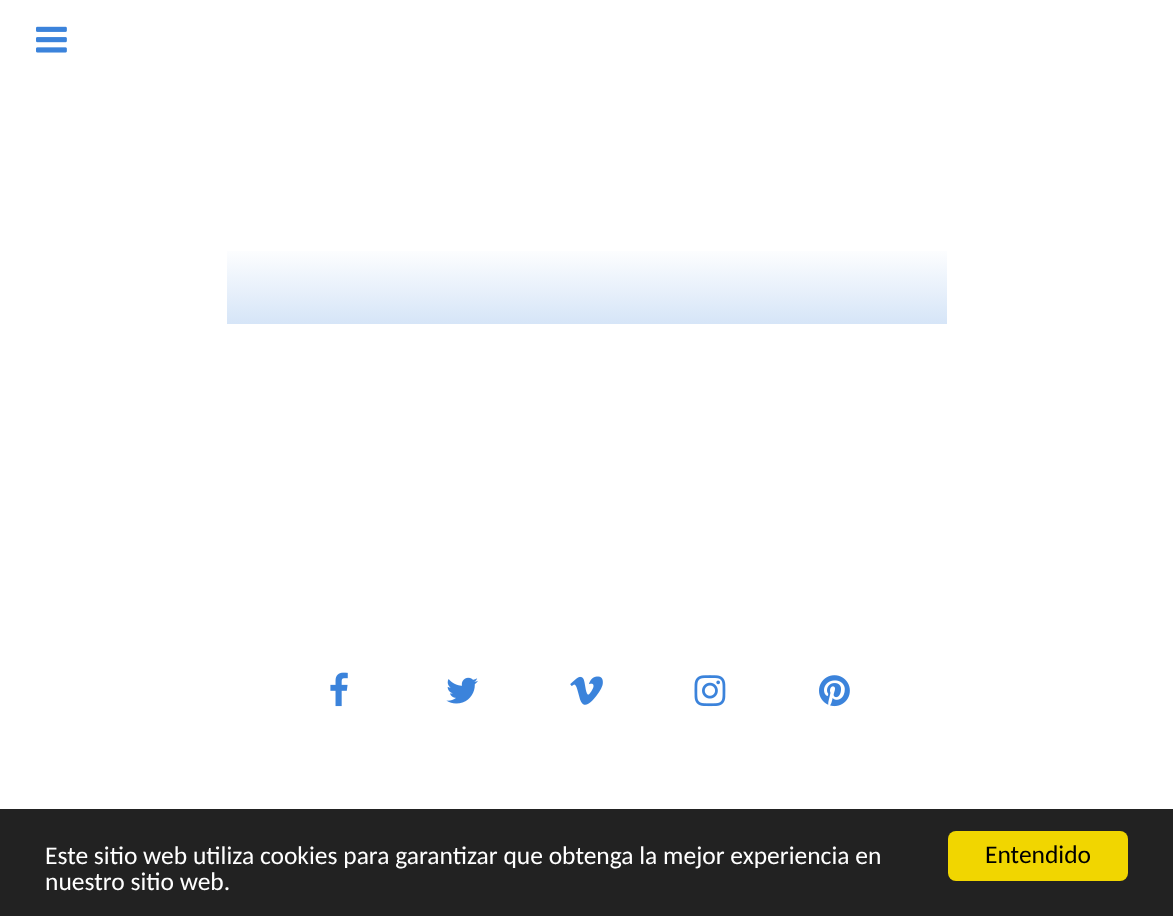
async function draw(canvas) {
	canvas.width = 1173;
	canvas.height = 916;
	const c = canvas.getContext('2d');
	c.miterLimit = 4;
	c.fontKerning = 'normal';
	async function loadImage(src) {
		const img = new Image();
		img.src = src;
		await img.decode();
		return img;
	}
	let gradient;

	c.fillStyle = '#fff';
	c.fillRect(0, 0, 1173, 916);
	c.drawImage(await loadImage('img1.png'), 36, 26, 31, 27);
	gradient = c.createLinearGradient(587, 246, 587, 615);
	gradient.addColorStop(0, '#fff');
	gradient.addColorStop(1, '#3b83db');
	c.fillStyle = gradient;
	c.fillRect(227, 251, 720, 73);
	c.drawImage(await loadImage('img2.png'), 330, 672, 18, 35);
	c.drawImage(await loadImage('img3.png'), 446, 677, 32, 27);
	c.drawImage(await loadImage('img4.png'), 570, 676, 33, 29);
	c.drawImage(await loadImage('img5.png'), 694, 675, 32, 32);
	c.drawImage(await loadImage('img6.png'), 819, 675, 31, 32);
	c.fillStyle = '#222';
	c.fillRect(0, 809, 1173, 107);
	c.font = '25.5px Carlito';
	c.fillStyle = '#fff';
	c.fillText('Este sitio web utiliza cookies para garantizar que obtenga la mejor experiencia en', 45, 864);
	c.fillText('nuestro sitio web.', 45, 890);
	c.fillStyle = '#f1d600';
	c.beginPath();
	c.roundRect(948, 831, 180, 50, 8);
	c.fill();
	c.fillStyle = '#000';
	c.fillText('Entendido', 985, 863);
}

draw(document.querySelector('canvas'));
